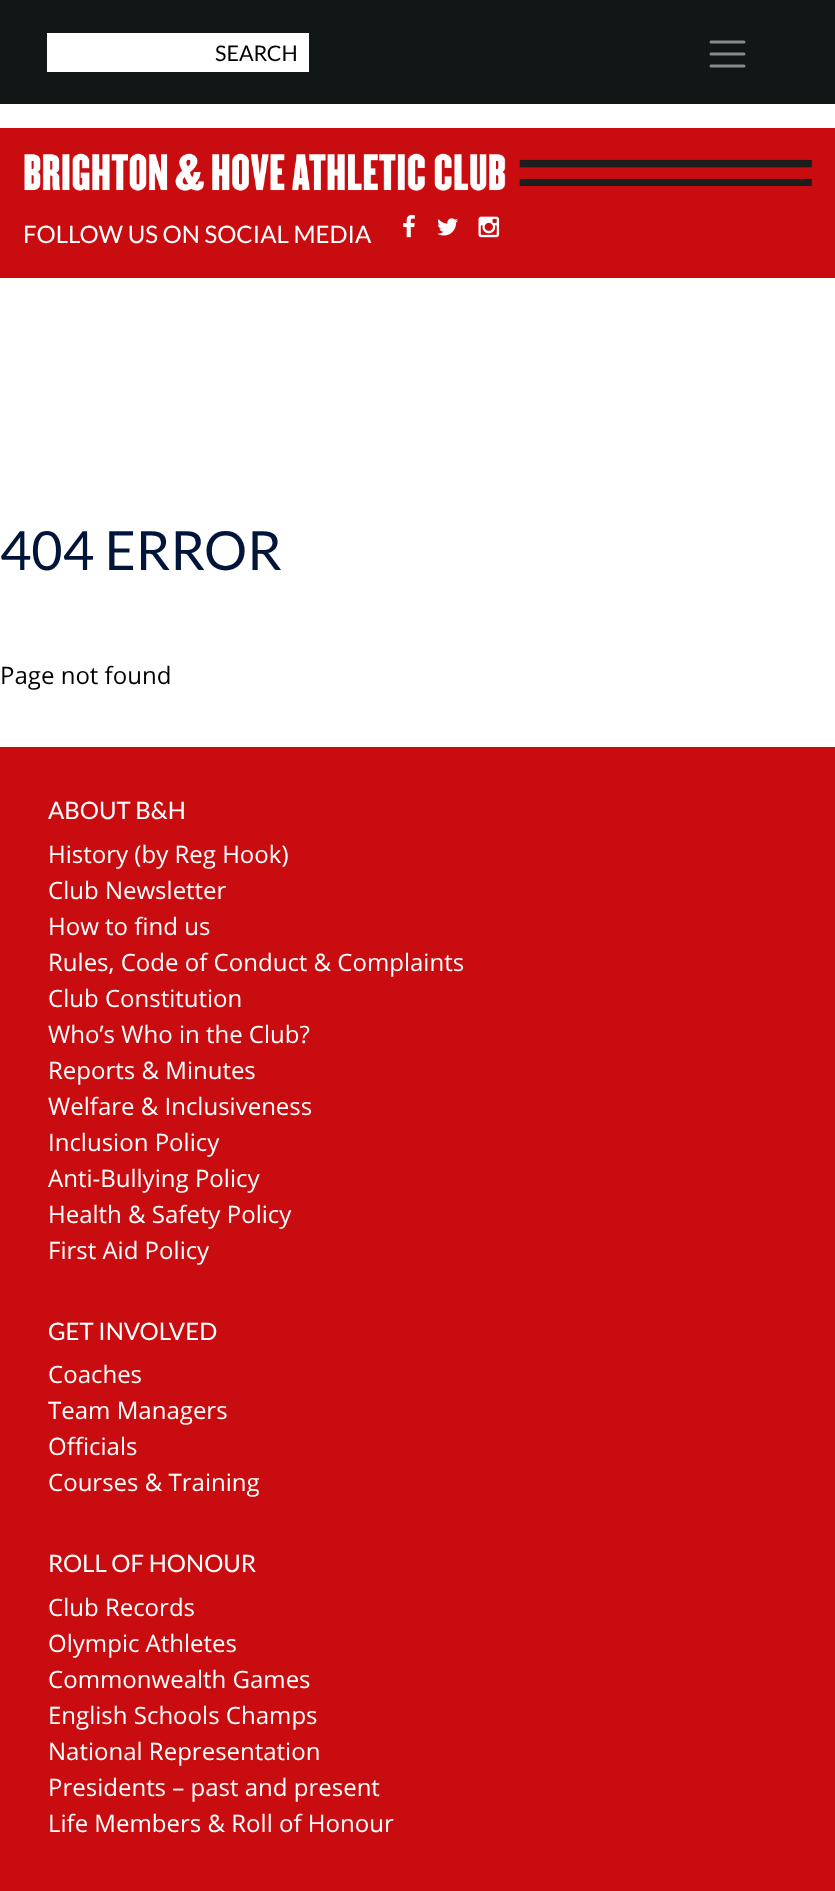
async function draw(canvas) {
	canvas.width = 835;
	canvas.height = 1891;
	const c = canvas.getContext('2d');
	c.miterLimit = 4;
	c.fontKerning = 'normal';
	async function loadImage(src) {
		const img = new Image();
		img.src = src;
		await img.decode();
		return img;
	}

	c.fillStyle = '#fff';
	c.fillRect(0, 0, 835, 1891);
	c.fillStyle = '#111617';
	c.fillRect(0, 0, 835, 104);
	c.fillStyle = '#fff';
	c.fillRect(47, 33, 262, 39);
	c.font = '21.5px Lato';
	c.fillStyle = '#000';
	c.fillText('SEARCH', 215, 61);
	c.beginPath();
	c.moveTo(711, 42);
	c.lineTo(744, 42);
	c.moveTo(711, 54);
	c.lineTo(744, 54);
	c.moveTo(711, 66);
	c.lineTo(744, 66);
	c.strokeStyle = '#888b8b';
	c.lineWidth = 3;
	c.lineCap = 'round';
	c.stroke();
	c.fillStyle = '#c90c0f';
	c.fillRect(0, 128, 835, 150);
	c.drawImage(await loadImage('img1.png'), 24, 153, 789, 38);
	c.font = '24px Lato';
	c.fillStyle = '#fff';
	c.fillText('FOLLOW US ON SOCIAL MEDIA', 23, 243);
	c.drawImage(await loadImage('img2.png'), 403, 214, 12, 24);
	c.drawImage(await loadImage('img3.png'), 437, 218, 21, 18);
	c.drawImage(await loadImage('img4.png'), 478, 216, 22, 22);
	c.font = '54px Lato';
	c.fillStyle = '#01153a';
	c.fillText('404 ERROR', 0, 570);
	c.font = '24px Open Sans';
	c.fillStyle = '#000';
	c.fillText('Page not found', 0, 684);
	c.fillStyle = '#c90c0f';
	c.fillRect(0, 747, 835, 1144);
	c.font = '24px Lato';
	c.fillStyle = '#fff';
	c.fillText('ABOUT B&H', 48, 819);
	c.font = '24px Open Sans';
	for (const [text, x, y] of [
		['History (by Reg Hook)', 48, 863],
		['Club Newsletter', 48, 899],
		['How to find us', 48, 935],
		['Rules, Code of Conduct & Complaints', 48, 971],
		['Club Constitution', 48, 1007],
		['Who’s Who in the Club?', 48, 1043],
		['Reports & Minutes', 48, 1079],
		['Welfare & Inclusiveness', 48, 1115],
		['Inclusion Policy', 48, 1151],
		['Anti-Bullying Policy', 48, 1187],
		['Health & Safety Policy', 48, 1223],
		['First Aid Policy', 48, 1259],
	]) {
		c.fillText(text, x, y);
	}
	c.font = '24px Lato';
	c.fillText('GET INVOLVED', 48, 1340);
	c.font = '24px Open Sans';
	for (const [text, x, y] of [
		['Coaches', 48, 1383],
		['Team Managers', 48, 1419],
		['Officials', 48, 1455],
		['Courses & Training', 48, 1491],
	]) {
		c.fillText(text, x, y);
	}
	c.font = '24px Lato';
	c.fillText('ROLL OF HONOUR', 48, 1572);
	c.font = '24px Open Sans';
	for (const [text, x, y] of [
		['Club Records', 48, 1616],
		['Olympic Athletes', 48, 1652],
		['Commonwealth Games', 48, 1688],
		['English Schools Champs', 48, 1724],
		['National Representation', 48, 1760],
		['Presidents – past and present', 48, 1796],
		['Life Members & Roll of Honour', 48, 1832],
	]) {
		c.fillText(text, x, y);
	}
}

draw(document.querySelector('canvas'));
